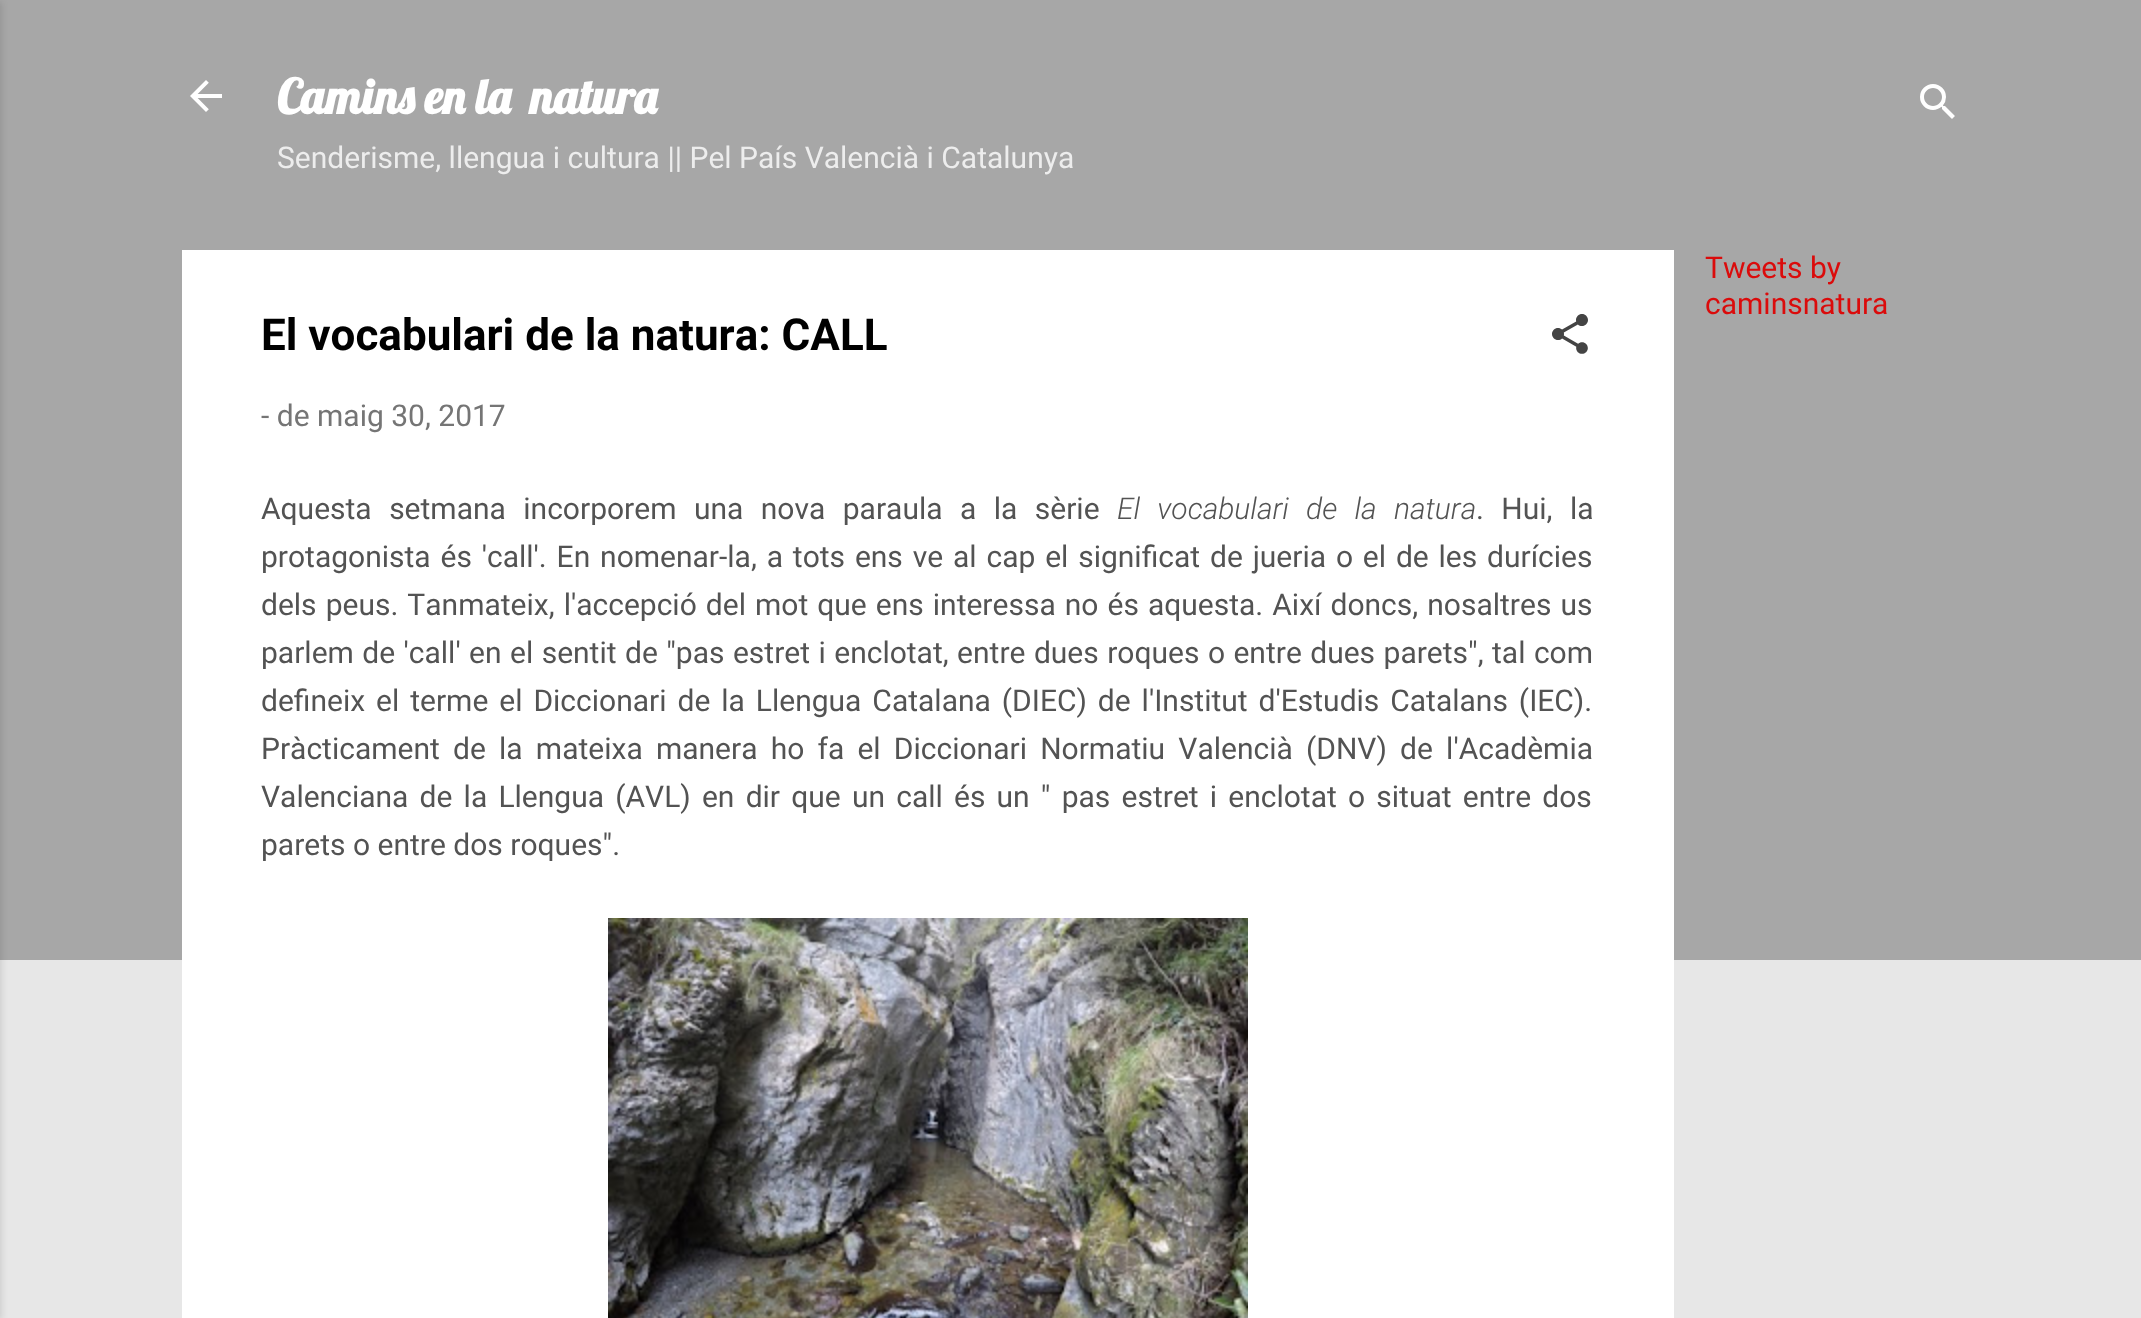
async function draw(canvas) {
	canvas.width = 2141;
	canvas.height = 1318;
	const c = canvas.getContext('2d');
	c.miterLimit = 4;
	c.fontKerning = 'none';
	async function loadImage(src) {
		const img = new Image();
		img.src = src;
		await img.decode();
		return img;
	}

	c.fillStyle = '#e7e7e7';
	c.fillRect(0, 0, 2141, 1318);
	c.fillStyle = '#a7a7a7';
	c.fillRect(0, 0, 2141, 960);
	c.fillStyle = '#0000001a';
	c.filter = 'blur(3px)';
	c.beginPath();
	c.rect(-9, 2, 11, 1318);
	c.fill();
	c.filter = 'none';
	c.drawImage(await loadImage('img1.png'), 190, 80, 32, 32);
	c.font = 'bold 48px Lobster';
	c.fillStyle = '#fff';
	c.fillText('Camins en la', 277, 114);
	c.fillText('natura', 530, 114);
	c.font = '30px Roboto';
	c.fillStyle = '#ededed';
	c.fillText('Senderisme, llengua i cultura || Pel País Valencià i Catalunya', 277, 168);
	c.drawImage(await loadImage('img2.png'), 1920, 84, 35, 35);
	c.fillStyle = '#db0b0b';
	c.fillText('Tweets by', 1705, 278);
	c.fillText('caminsnatura', 1705, 314);
	c.fillStyle = '#fff';
	c.fillRect(182, 250, 1492, 1068);
	c.font = 'bold 44px Roboto';
	c.fillStyle = '#000';
	c.fillText('El vocabulari de la natura: CALL', 261, 350);
	c.drawImage(await loadImage('img3.png'), 1552, 314, 36, 40);
	c.font = '30px Roboto';
	c.fillStyle = '#757575';
	c.fillText('- de maig 30, 2017', 261, 426);
	c.wordSpacing = '10px';
	c.fillStyle = '#535353';
	c.fillText('Aquesta setmana incorporem una nova paraula a la sèrie', 261, 519);
	c.font = 'italic 300 30px Roboto';
	c.fillText('El vocabulari de la natura', 1117, 519);
	c.font = '30px Roboto';
	c.fillText('. Hui, la', 1476, 519);
	c.wordSpacing = '2.4px';
	c.fillText('protagonista és \'call\'. En nomenar-la, a tots ens ve al cap el significat de jueria o el de les durícies', 261, 567);
	c.wordSpacing = '1.6px';
	c.fillText('dels peus. Tanmateix, l\'accepció del mot que ens interessa no és aquesta. Així doncs, nosaltres us', 261, 615);
	c.wordSpacing = '1px';
	c.fillText('parlem de \'call\' en el sentit de "pas estret i enclotat, entre dues roques o entre dues parets", tal com', 261, 663);
	c.wordSpacing = '3.5px';
	c.fillText('defineix el terme el Diccionari de la Llengua Catalana (DIEC) de l\'Institut d\'Estudis Catalans (IEC).', 261, 711);
	c.wordSpacing = '5.75px';
	c.fillText('Pràcticament de la mateixa manera ho fa el Diccionari Normatiu Valencià (DNV) de l\'Acadèmia', 261, 759);
	c.wordSpacing = '3.75px';
	c.fillText('Valenciana de la Llengua (AVL) en dir que un call és un " pas estret i enclotat o situat entre dos', 261, 807);
	c.wordSpacing = '0px';
	c.fillText('parets o entre dos roques".', 261, 855);
	c.drawImage(await loadImage('img4.png'), 608, 918, 640, 400);
}

draw(document.querySelector('canvas'));
